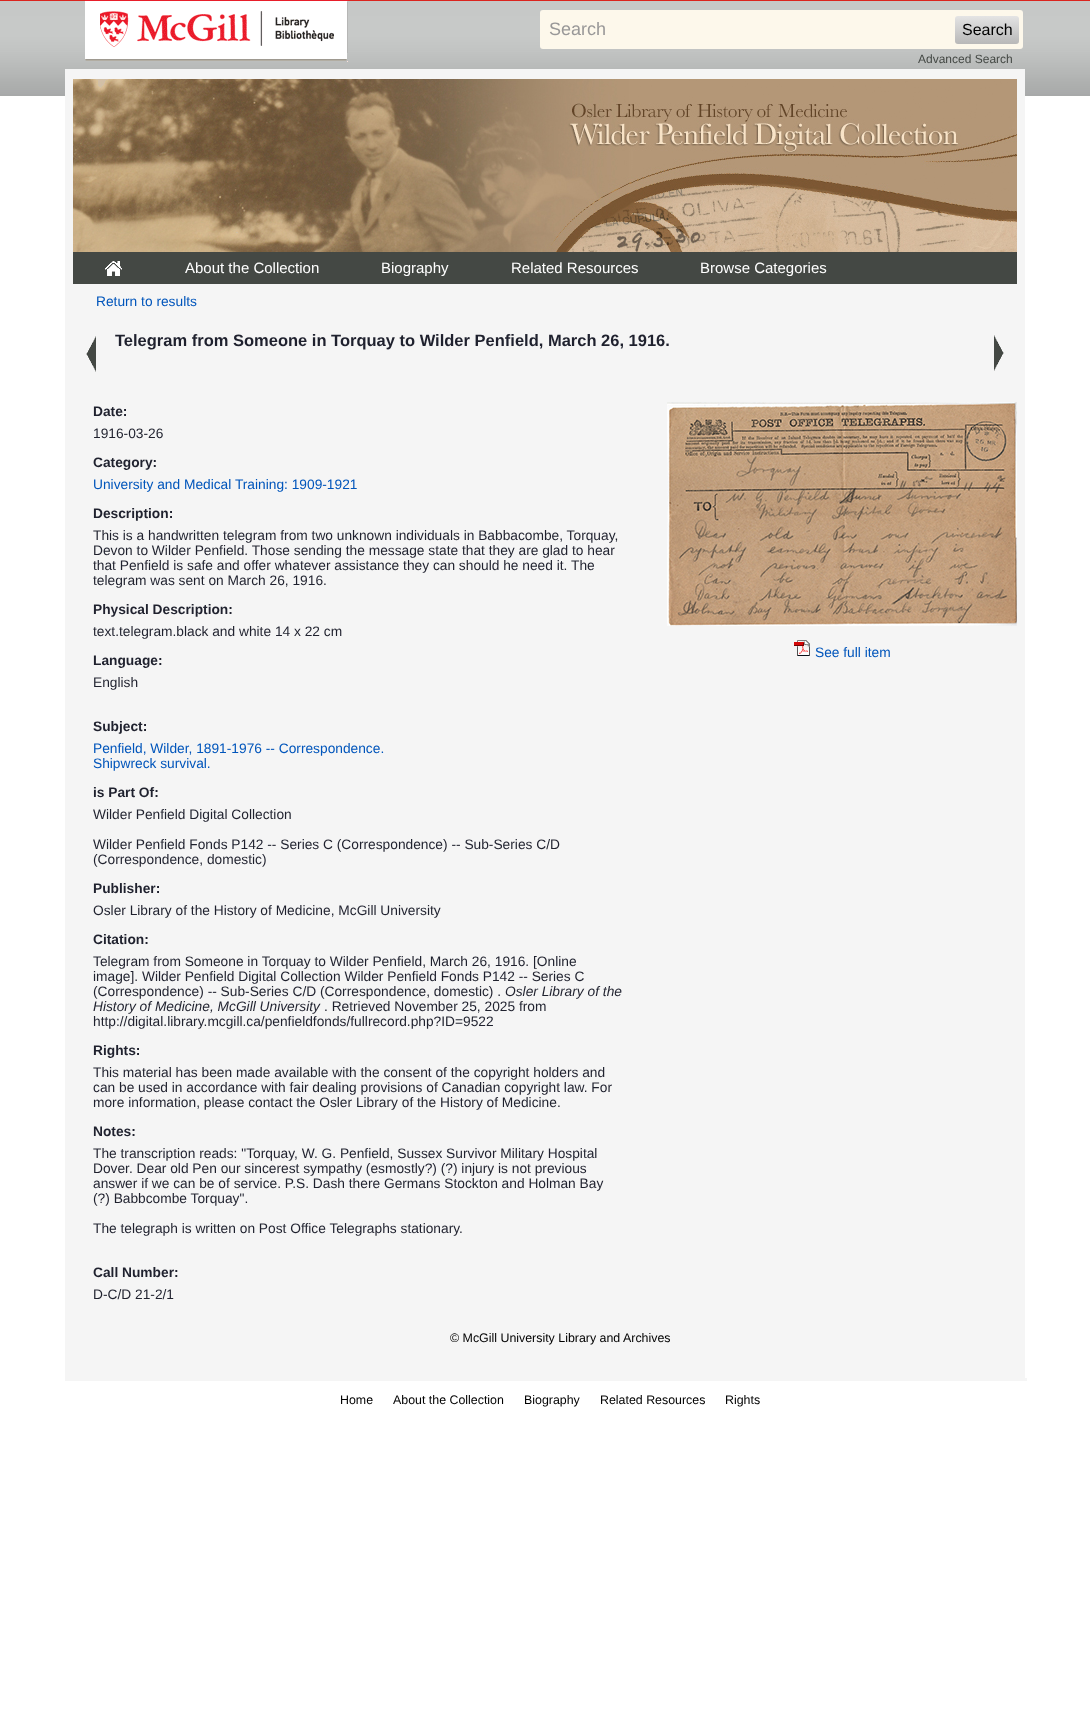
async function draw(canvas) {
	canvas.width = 1090;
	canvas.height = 1720;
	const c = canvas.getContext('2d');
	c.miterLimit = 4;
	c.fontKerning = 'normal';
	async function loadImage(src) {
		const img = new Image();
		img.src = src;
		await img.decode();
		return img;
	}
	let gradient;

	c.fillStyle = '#fff';
	c.fillRect(0, 0, 1090, 1720);
	c.drawImage(await loadImage('img1.png'), 0, 0, 1090, 96);
	c.drawImage(await loadImage('img2.png'), 85, 0, 263, 62);
	c.fillStyle = '#fdf8eb';
	c.beginPath();
	c.roundRect(540, 10, 483, 39, 3);
	c.fill();
	c.font = '18px Liberation Sans';
	c.fillStyle = '#999898';
	c.fillText('Search', 549, 35);
	gradient = c.createLinearGradient(955, 16, 955, 44);
	gradient.addColorStop(0, '#e4e4e4');
	gradient.addColorStop(1, '#b8b8b8');
	c.fillStyle = gradient;
	c.beginPath();
	c.roundRect(955, 16, 64, 28, 3);
	c.fill();
	c.font = '16px Liberation Sans';
	c.fillStyle = '#000';
	c.fillText('Search', 962, 35);
	c.font = '12px Liberation Sans';
	c.fillStyle = '#444844';
	c.fillText('Advanced Search', 918, 63);
	c.fillStyle = '#f5f5f5';
	c.fillRect(65, 1378, 962, 3);
	c.fillRect(65, 69, 960, 1309);
	c.drawImage(await loadImage('img3.png'), 73, 79, 944, 173);
	c.fillStyle = '#444844';
	c.fillRect(73, 252, 944, 32);
	c.drawImage(await loadImage('img4.png'), 105, 261, 17, 15);
	c.font = '15px Liberation Sans';
	c.fillStyle = '#fff';
	for (const [text, x, y] of [
		['About the Collection', 185, 273],
		['Biography', 381, 273],
		['Related Resources', 511, 273],
		['Browse Categories', 700, 273],
	]) {
		c.fillText(text, x, y);
	}
	c.font = '13.75px Liberation Sans';
	c.fillStyle = '#05b';
	c.fillText('Return to results', 96, 306);
	c.drawImage(await loadImage('img5.png'), 86, 336, 10, 36);
	c.font = 'bold 16.5px Liberation Sans';
	c.fillStyle = '#1f212e';
	c.fillText('Telegram from Someone in Torquay to Wilder Penfield, March 26, 1916.', 115, 346);
	c.drawImage(await loadImage('img6.png'), 994, 335, 10, 36);
	c.font = 'bold 13.75px Liberation Sans';
	c.fillText('Date:', 93, 416);
	c.font = '13.75px Liberation Sans';
	c.fillText('1916-03-26', 93, 438);
	c.font = 'bold 13.75px Liberation Sans';
	c.fillText('Category:', 93, 467);
	c.font = '13.75px Liberation Sans';
	c.fillStyle = '#05b';
	c.fillText('University and Medical Training: 1909-1921', 93, 489);
	c.font = 'bold 13.75px Liberation Sans';
	c.fillStyle = '#1f212e';
	c.fillText('Description:', 93, 518);
	c.font = '13.75px Liberation Sans';
	for (const [text, x, y] of [
		['This is a handwritten telegram from two unknown individuals in Babbacombe, Torquay,', 93, 540],
		['Devon to Wilder Penfield. Those sending the message state that they are glad to hear', 93, 555],
		['that Penfield is safe and offer whatever assistance they can should he need it. The', 93, 570],
		['telegram was sent on March 26, 1916.', 93, 585],
	]) {
		c.fillText(text, x, y);
	}
	c.font = 'bold 13.75px Liberation Sans';
	c.fillText('Physical Description:', 93, 614);
	c.font = '13.75px Liberation Sans';
	c.fillText('text.telegram.black and white 14 x 22 cm', 93, 636);
	c.font = 'bold 13.75px Liberation Sans';
	c.fillText('Language:', 93, 665);
	c.font = '13.75px Liberation Sans';
	c.fillText('English', 93, 687);
	c.font = 'bold 13.75px Liberation Sans';
	c.fillText('Subject:', 93, 731);
	c.font = '13.75px Liberation Sans';
	c.fillStyle = '#05b';
	c.fillText('Penfield, Wilder, 1891-1976 -- Correspondence.', 93, 753);
	c.fillText('Shipwreck survival.', 93, 768);
	c.font = 'bold 13.75px Liberation Sans';
	c.fillStyle = '#1f212e';
	c.fillText('is Part Of:', 93, 797);
	c.font = '13.75px Liberation Sans';
	for (const [text, x, y] of [
		['Wilder Penfield Digital Collection', 93, 819],
		['Wilder Penfield Fonds P142 -- Series C (Correspondence) -- Sub-Series C/D', 93, 849],
		['(Correspondence, domestic)', 93, 864],
	]) {
		c.fillText(text, x, y);
	}
	c.font = 'bold 13.75px Liberation Sans';
	c.fillText('Publisher:', 93, 893);
	c.font = '13.75px Liberation Sans';
	c.fillText('Osler Library of the History of Medicine, McGill University', 93, 915);
	c.font = 'bold 13.75px Liberation Sans';
	c.fillText('Citation:', 93, 944);
	c.font = '13.75px Liberation Sans';
	for (const [text, x, y] of [
		['Telegram from Someone in Torquay to Wilder Penfield, March 26, 1916. [Online', 93, 966],
		['image]. Wilder Penfield Digital Collection Wilder Penfield Fonds P142 -- Series C', 93, 981],
		['(Correspondence) -- Sub-Series C/D (Correspondence, domestic) .', 93, 996],
	]) {
		c.fillText(text, x, y);
	}
	c.font = 'italic 13.75px Liberation Sans';
	c.fillText('Osler Library of the', 505, 996);
	c.fillText('History of Medicine, McGill University', 93, 1011);
	c.font = '13.75px Liberation Sans';
	c.fillText('. Retrieved November 25, 2025 from', 324, 1011);
	c.fillText('http://digital.library.mcgill.ca/penfieldfonds/fullrecord.php?ID=9522', 93, 1026);
	c.font = 'bold 13.75px Liberation Sans';
	c.fillText('Rights:', 93, 1055);
	c.font = '13.75px Liberation Sans';
	for (const [text, x, y] of [
		['This material has been made available with the consent of the copyright holders and', 93, 1077],
		['can be used in accordance with fair dealing provisions of Canadian copyright law. For', 93, 1092],
		['more information, please contact the Osler Library of the History of Medicine.', 93, 1107],
	]) {
		c.fillText(text, x, y);
	}
	c.font = 'bold 13.75px Liberation Sans';
	c.fillText('Notes:', 93, 1136);
	c.font = '13.75px Liberation Sans';
	for (const [text, x, y] of [
		['The transcription reads: "Torquay, W. G. Penfield, Sussex Survivor Military Hospital', 93, 1158],
		['Dover. Dear old Pen our sincerest sympathy (esmostly?) (?) injury is not previous', 93, 1173],
		['answer if we can be of service. P.S. Dash there Germans Stockton and Holman Bay', 93, 1188],
		['(?) Babbcombe Torquay".', 93, 1203],
		['The telegraph is written on Post Office Telegraphs stationary.', 93, 1233],
	]) {
		c.fillText(text, x, y);
	}
	c.font = 'bold 13.75px Liberation Sans';
	c.fillText('Call Number:', 93, 1277);
	c.font = '13.75px Liberation Sans';
	c.fillText('D-C/D 21-2/1', 93, 1299);
	c.drawImage(await loadImage('img7.png'), 667, 402, 350, 224);
	c.drawImage(await loadImage('img8.png'), 794, 640, 16, 16);
	c.fillStyle = '#05b';
	c.fillText('See full item', 815, 657);
	c.font = '12.4px Liberation Sans';
	c.fillStyle = '#000';
	for (const [text, x, y] of [
		['© McGill University Library and Archives', 450, 1342],
		['Home', 340, 1404],
		['About the Collection', 393, 1404],
		['Biography', 524, 1404],
		['Related Resources', 600, 1404],
		['Rights', 725, 1404],
	]) {
		c.fillText(text, x, y);
	}
}

draw(document.querySelector('canvas'));
